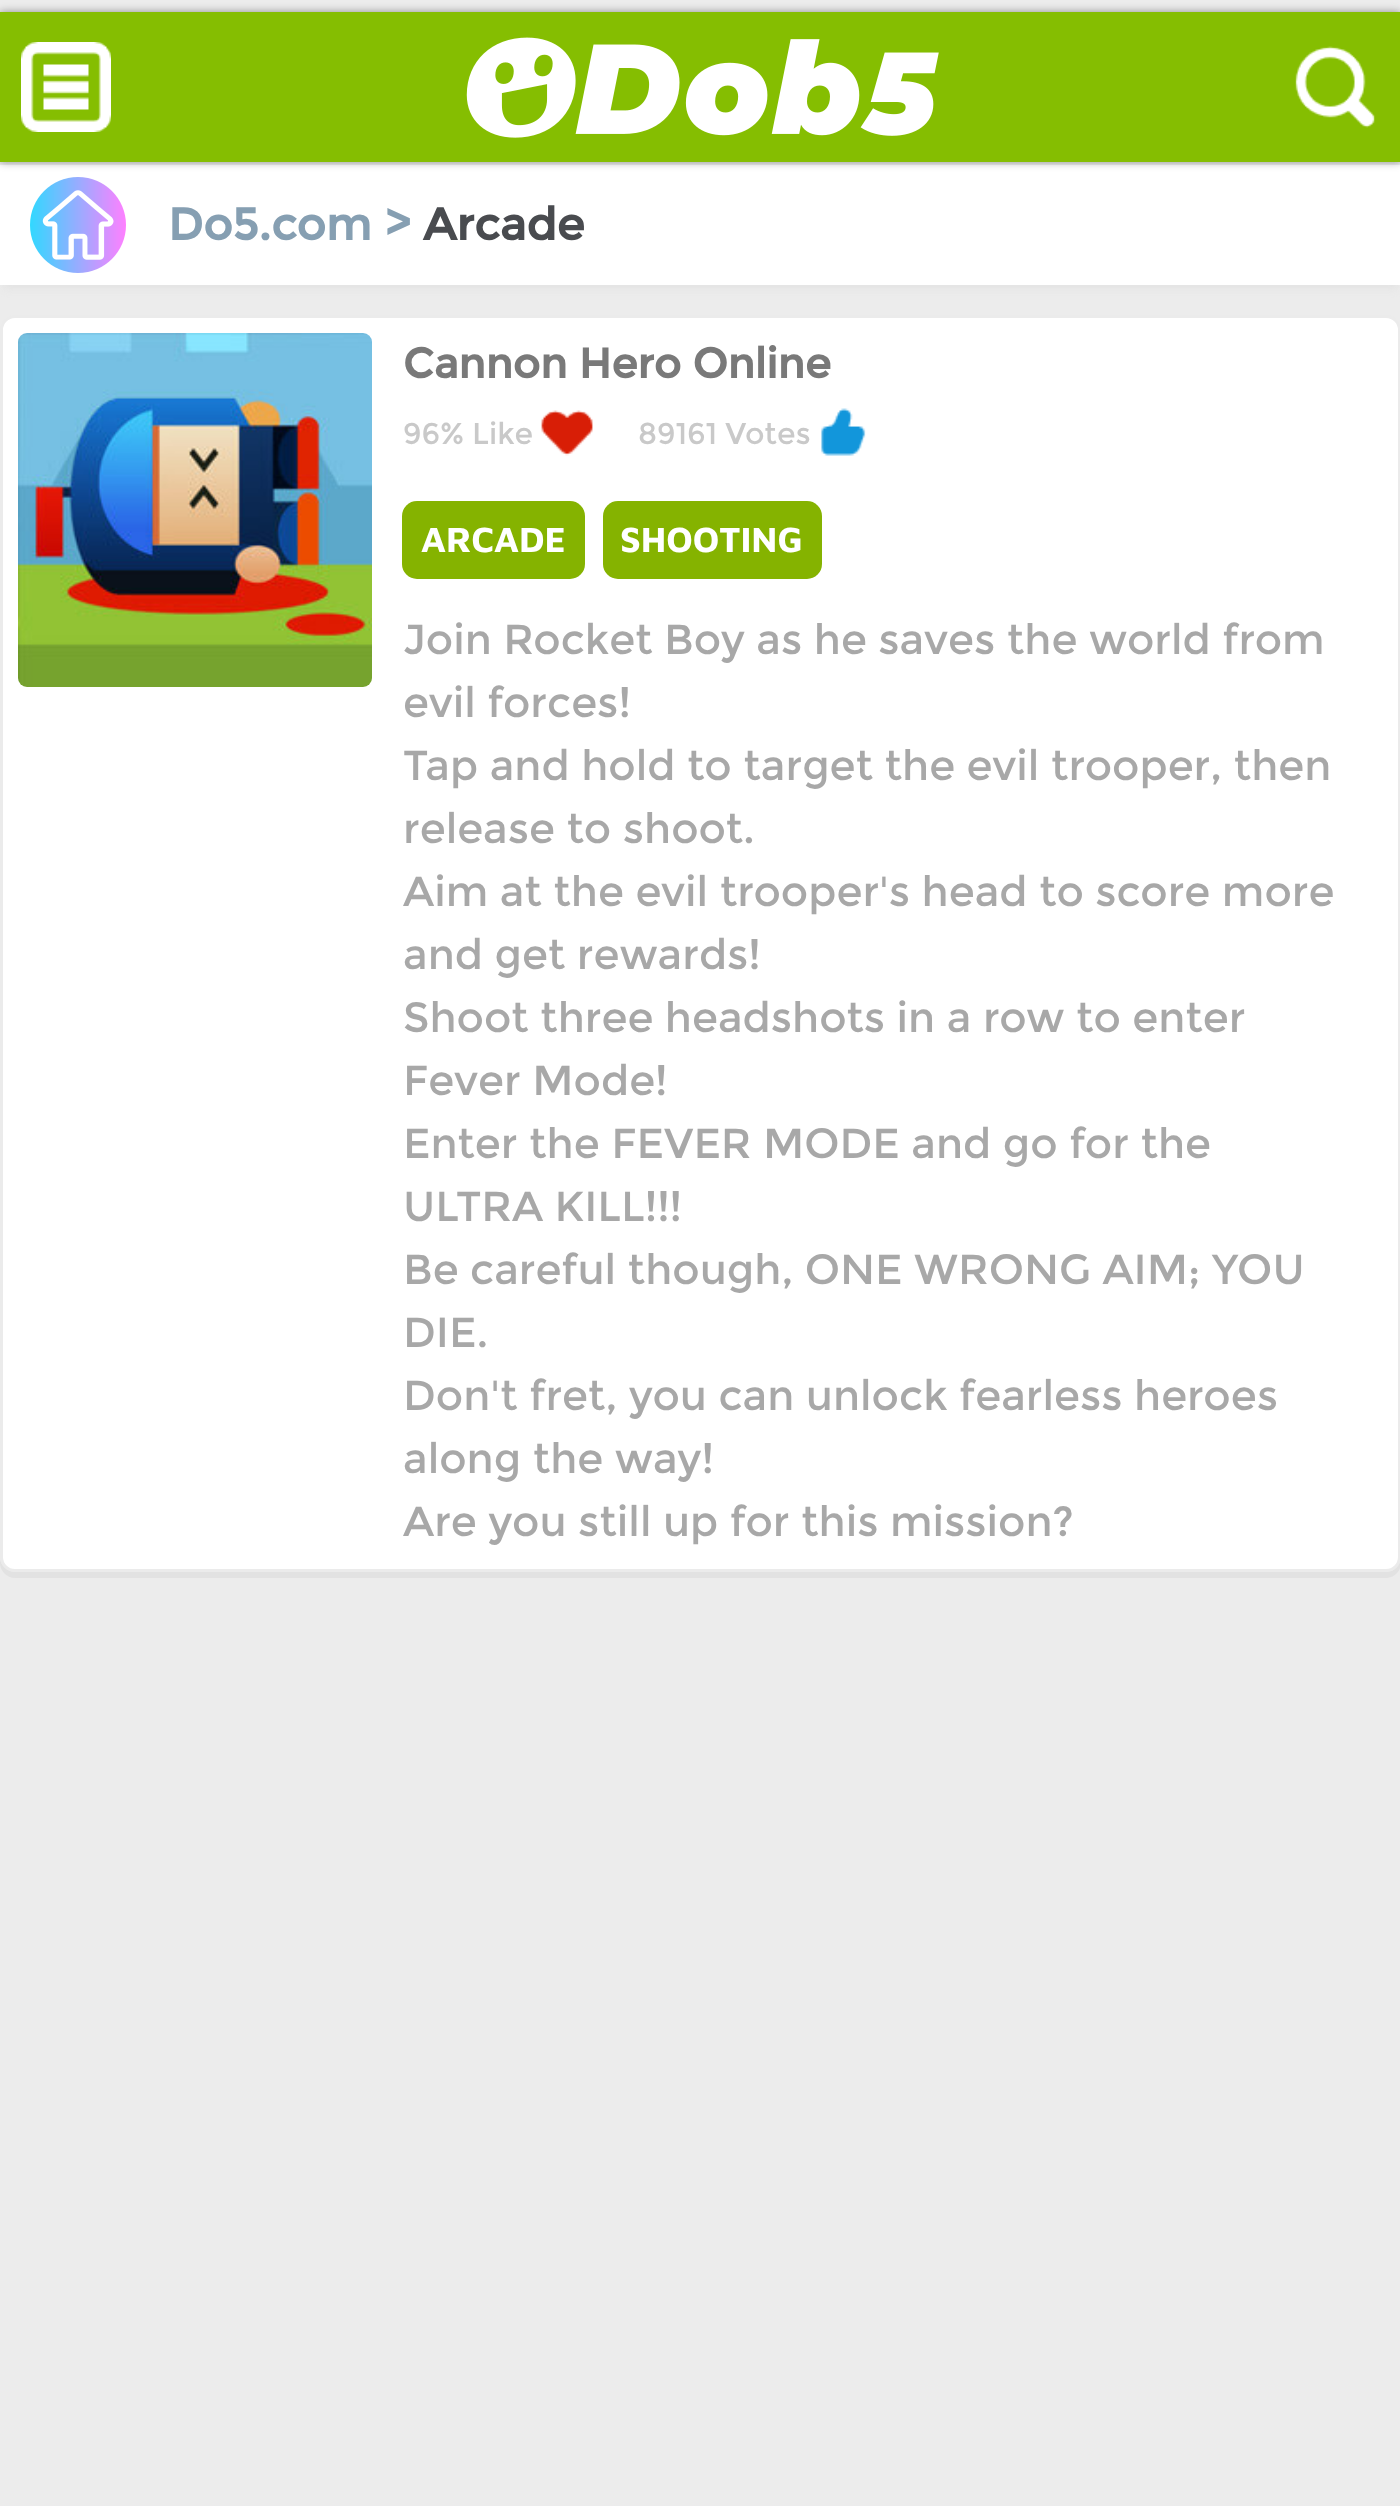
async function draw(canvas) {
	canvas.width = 1400;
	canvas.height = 2506;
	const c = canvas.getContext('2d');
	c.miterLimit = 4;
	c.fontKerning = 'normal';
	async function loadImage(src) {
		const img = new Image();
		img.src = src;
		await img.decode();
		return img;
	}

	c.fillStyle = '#ececec';
	c.fillRect(0, 0, 1400, 2506);
	c.fillStyle = '#e2e2e2';
	c.filter = 'blur(4.5px)';
	c.beginPath();
	c.rect(3, 171, 1395, 117);
	c.fill();
	c.filter = 'none';
	c.fillStyle = '#fff';
	c.fillRect(0, 165, 1400, 120);
	c.fillStyle = '#eee';
	c.fillRect(0, 164, 1400, 1);
	c.fillStyle = '#00000066';
	c.filter = 'blur(4.5px)';
	c.beginPath();
	c.rect(0, 12, 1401, 150);
	c.fill();
	c.filter = 'none';
	c.fillStyle = '#85be01';
	c.fillRect(0, 12, 1400, 150);
	c.drawImage(await loadImage('img1.png'), 21, 42, 90, 90);
	c.drawImage(await loadImage('img2.png'), 466, 37, 473, 101);
	c.drawImage(await loadImage('img3.png'), 1295, 46, 80, 82);
	c.drawImage(await loadImage('img4.png'), 30, 177, 96, 96);
	c.font = 'bold 45px Montserrat';
	c.fillStyle = '#869fb2';
	c.fillText('Do5.com >', 168, 240);
	c.fillStyle = '#494b4f';
	c.fillText('Arcade', 423, 240);
	c.fillStyle = '#e2e2e2';
	c.beginPath();
	c.moveTo(0, 1557);
	c.lineTo(0, 1563);
	c.bezierCurveTo(0, 1571, 7, 1578, 15, 1578);
	c.lineTo(1386, 1578);
	c.bezierCurveTo(1394, 1578, 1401, 1571, 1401, 1563);
	c.lineTo(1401, 1557);
	c.bezierCurveTo(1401, 1565, 1394, 1572, 1386, 1572);
	c.lineTo(15, 1572);
	c.bezierCurveTo(7, 1572, 0, 1565, 0, 1557);
	c.closePath();
	c.fill();
	c.fillStyle = '#fff';
	c.beginPath();
	c.roundRect(1.5, 316.5, 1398, 1254, 13.5);
	c.fill();
	c.strokeStyle = '#ebebeb';
	c.lineWidth = 3;
	c.stroke();
	c.drawImage(await loadImage('img5.png'), 18, 333, 354, 354);
	c.font = 'bold 42px Montserrat';
	c.fillStyle = '#797979';
	c.fillText('Cannon Hero Online', 403, 378);
	c.drawImage(await loadImage('img6.png'), 541, 410, 52, 46);
	c.font = '30px Montserrat';
	c.fillStyle = '#c9c9c9';
	c.fillText('96% Like', 403, 444);
	c.drawImage(await loadImage('img7.png'), 821, 408, 45, 48);
	c.fillText('89161 Votes', 638, 444);
	c.fillStyle = '#85b300';
	c.beginPath();
	c.roundRect(402, 501, 183, 78, 15);
	c.fill();
	c.font = 'bold 36px Maven Pro';
	c.fillStyle = '#fff';
	c.fillText('ARCADE', 421, 552);
	c.fillStyle = '#85b300';
	c.beginPath();
	c.roundRect(603, 501, 219, 78, 15);
	c.fill();
	c.fillStyle = '#fff';
	c.fillText('SHOOTING', 620, 552);
	c.font = '42px Montserrat';
	c.fillStyle = '#a8a8a8';
	for (const [text, x, y] of [
		['Join Rocket Boy as he saves the world from', 403, 654],
		['evil forces!', 403, 717],
		['Tap and hold to target the evil trooper, then', 403, 780],
		['release to shoot.', 403, 843],
		['Aim at the evil trooper\'s head to score more', 403, 906],
		['and get rewards!', 403, 969],
		['Shoot three headshots in a row to enter', 403, 1032],
		['Fever Mode!', 403, 1095],
		['Enter the FEVER MODE and go for the', 403, 1158],
		['ULTRA KILL!!!', 403, 1221],
		['Be careful though, ONE WRONG AIM; YOU', 403, 1284],
		['DIE.', 403, 1347],
		['Don\'t fret, you can unlock fearless heroes', 403, 1410],
		['along the way!', 403, 1473],
		['Are you still up for this mission?', 403, 1536],
	]) {
		c.fillText(text, x, y);
	}
}

draw(document.querySelector('canvas'));
